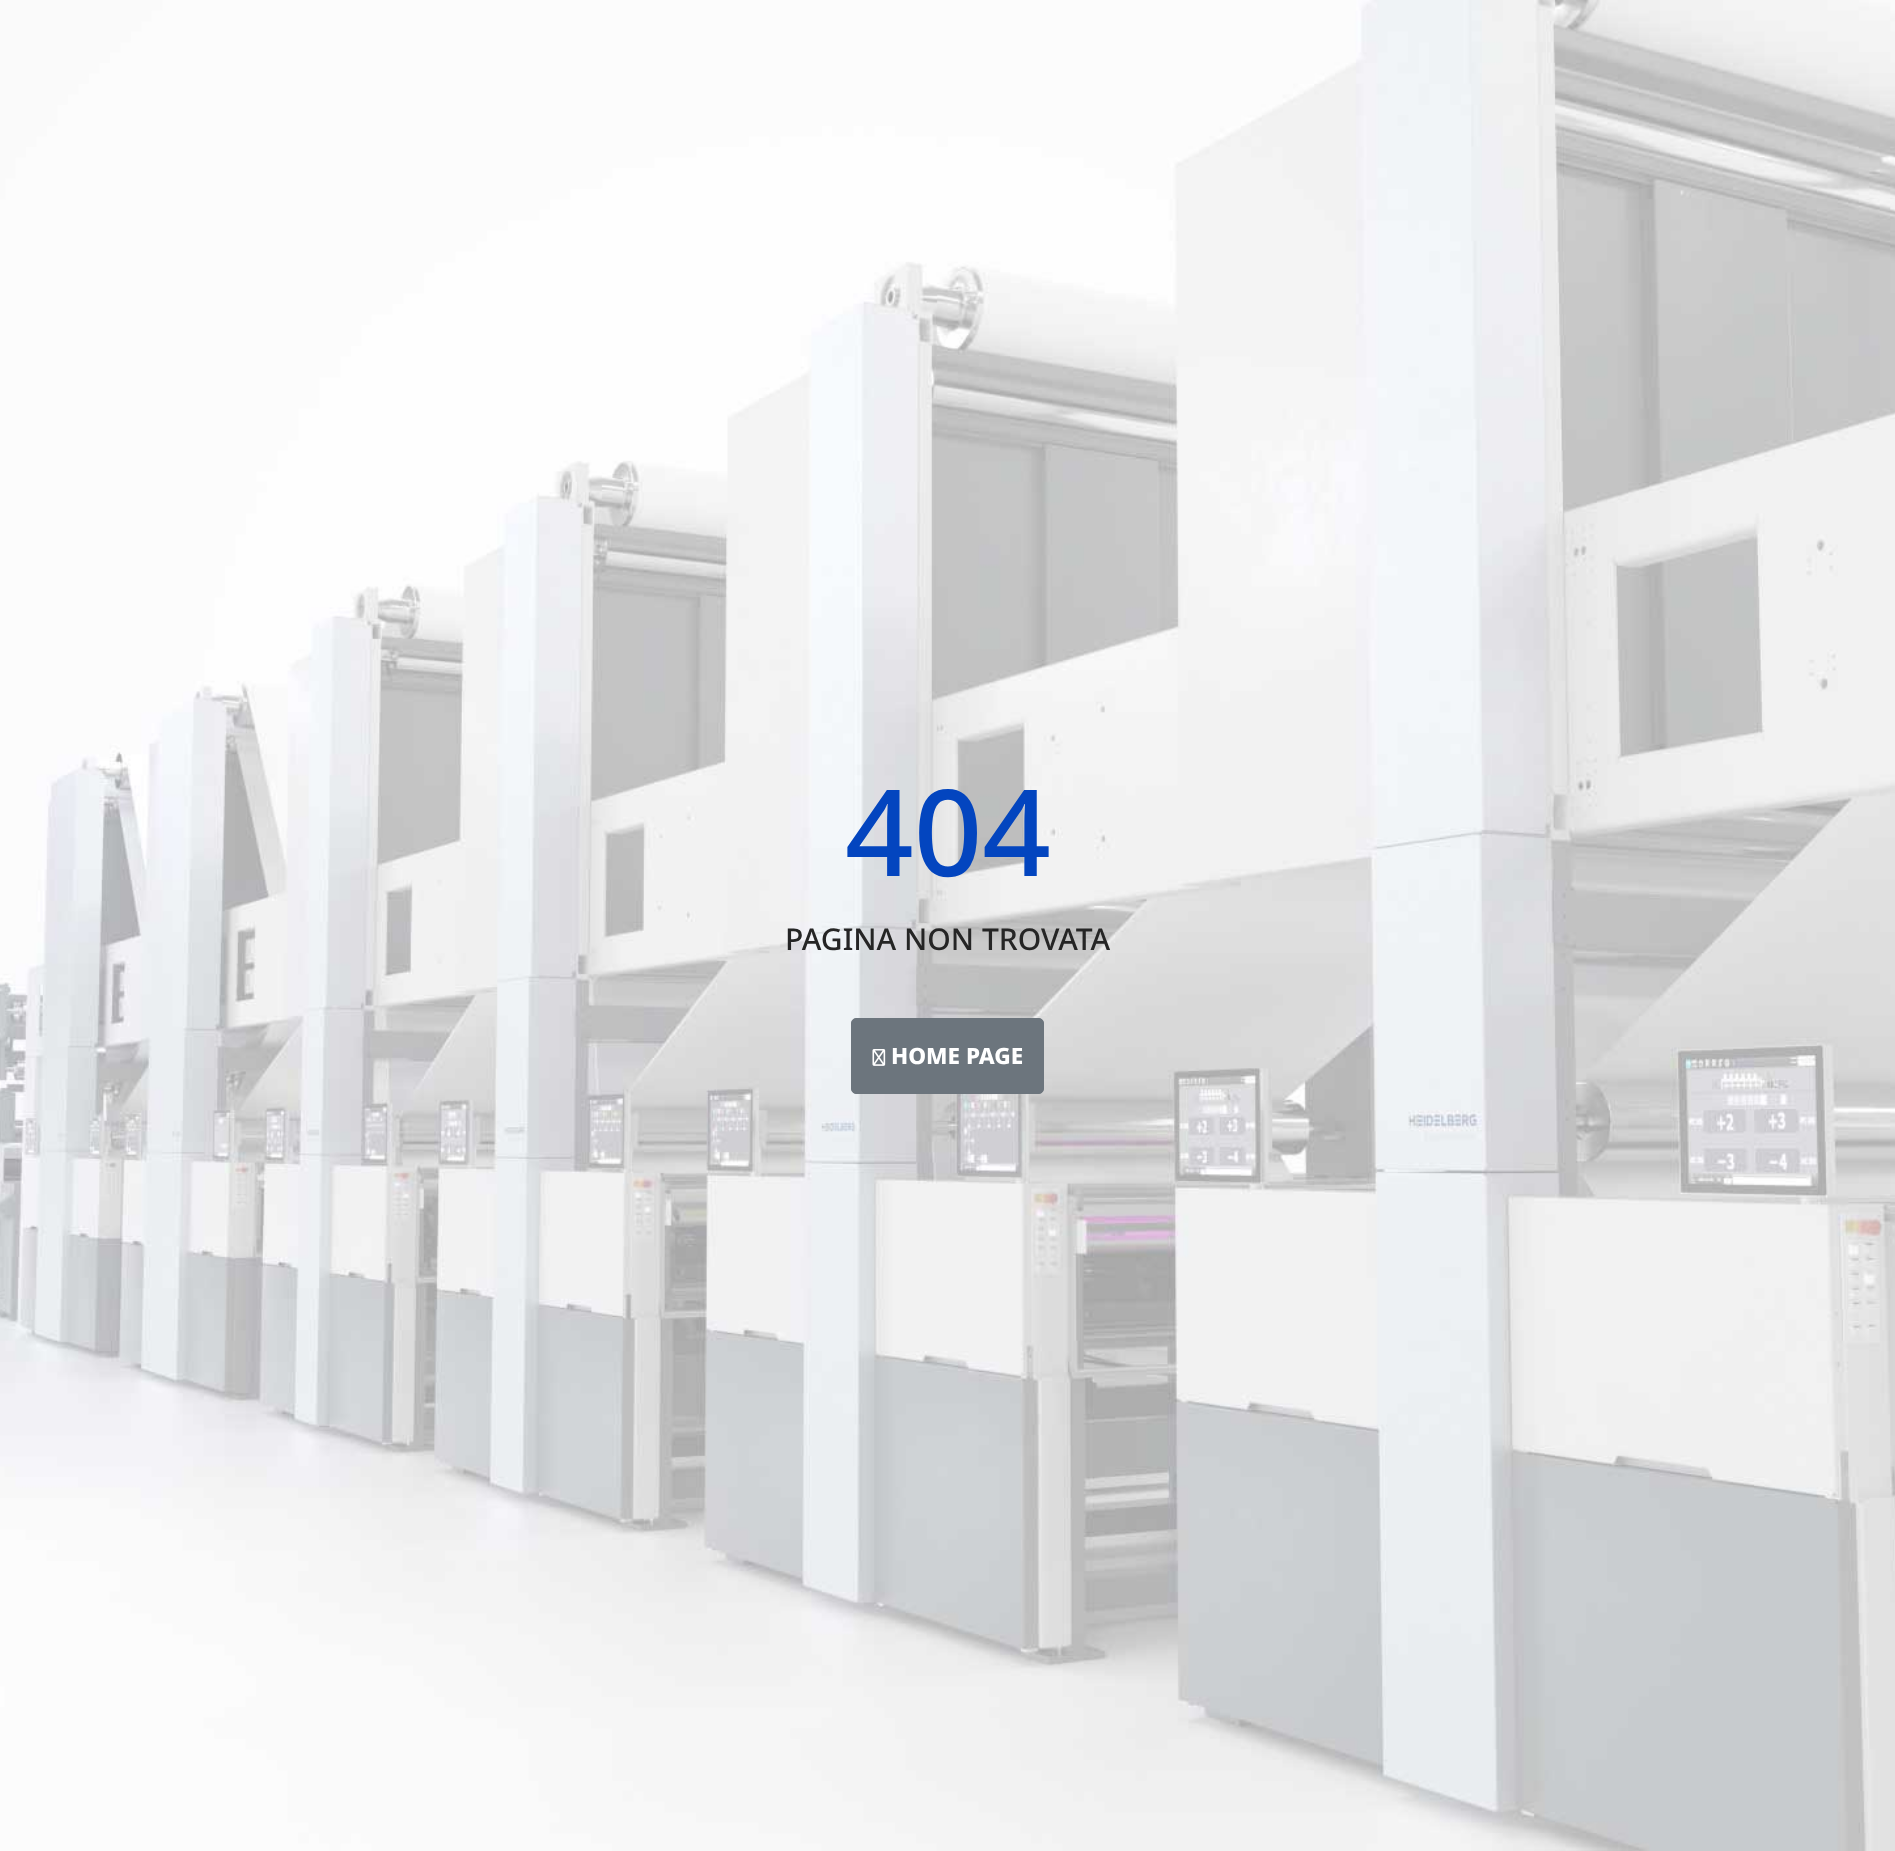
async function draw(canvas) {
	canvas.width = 1895;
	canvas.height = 1851;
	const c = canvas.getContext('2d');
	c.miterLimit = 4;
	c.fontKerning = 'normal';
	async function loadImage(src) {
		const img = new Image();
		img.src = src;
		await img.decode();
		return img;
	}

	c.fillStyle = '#fff';
	c.fillRect(0, 0, 1895, 1851);
	c.drawImage(await loadImage('img1.png'), 0, 0, 1895, 1851);
	c.font = '500 120px Noto Sans';
	c.fillStyle = '#0345bf';
	c.fillText('404', 845, 876);
	c.font = '500 30px Noto Sans';
	c.fillStyle = '#252525';
	c.fillText('PAGINA NON TROVATA', 785, 950);
	c.fillStyle = '#6c757d';
	c.beginPath();
	c.roundRect(851.5, 1018.5, 192, 75, 4.5);
	c.fill();
	c.strokeStyle = '#6c757d';
	c.stroke();
	c.drawImage(await loadImage('img2.png'), 872, 1049, 14, 17);
	c.font = '800 22.5px Noto Sans';
	c.fillStyle = '#fff';
	c.fillText('HOME PAGE', 891, 1064);
}

draw(document.querySelector('canvas'));
